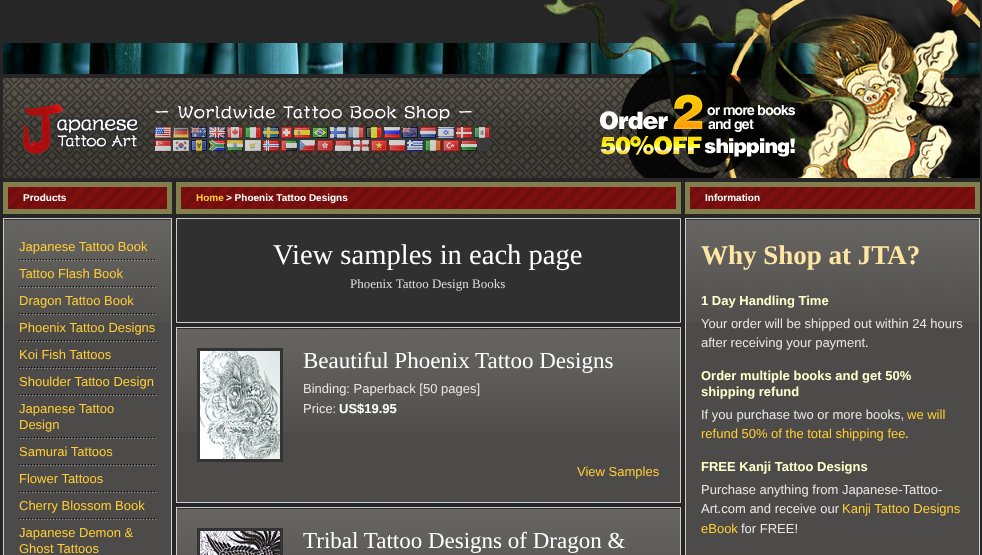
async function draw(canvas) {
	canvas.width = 982;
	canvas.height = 555;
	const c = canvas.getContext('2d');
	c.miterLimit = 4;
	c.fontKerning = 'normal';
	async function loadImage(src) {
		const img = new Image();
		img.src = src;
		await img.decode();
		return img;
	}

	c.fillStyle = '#262626';
	c.fillRect(0, 0, 982, 555);
	c.drawImage(await loadImage('img1.png'), 3, 0, 977, 178);
	c.drawImage(await loadImage('img2.png'), 23, 104, 467, 50);
	c.drawImage(await loadImage('img3.png'), 8, 187, 159, 22);
	c.strokeStyle = '#817f4e';
	c.lineWidth = 5;
	c.strokeRect(5.5, 184.5, 164, 27);
	c.font = 'bold 10px Liberation Sans';
	c.fillStyle = '#fff';
	c.fillText('Products', 23, 201);
	c.fillStyle = '#4d4b49';
	c.fillRect(4, 323, 167, 232);
	c.drawImage(await loadImage('img4.png'), 4, 219, 167, 104);
	c.strokeStyle = '#cdcdcd';
	c.lineWidth = 1;
	c.strokeRect(3.5, 218.5, 168, 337);
	c.drawImage(await loadImage('img5.png'), 19, 259, 137, 2);
	c.font = '13px Liberation Sans';
	c.fillStyle = '#ffcd34';
	c.fillText('Japanese Tattoo Book', 19, 251);
	c.drawImage(await loadImage('img6.png'), 19, 286, 137, 2);
	c.fillText('Tattoo Flash Book', 19, 278);
	c.drawImage(await loadImage('img7.png'), 19, 313, 137, 2);
	c.fillText('Dragon Tattoo Book', 19, 305);
	c.drawImage(await loadImage('img8.png'), 19, 340, 137, 2);
	c.fillText('Phoenix Tattoo Designs', 19, 332);
	c.drawImage(await loadImage('img8.png'), 19, 367, 137, 2);
	c.fillText('Koi Fish Tattoos', 19, 359);
	c.drawImage(await loadImage('img8.png'), 19, 394, 137, 2);
	c.fillText('Shoulder Tattoo Design', 19, 386);
	c.drawImage(await loadImage('img8.png'), 19, 437, 137, 2);
	c.fillText('Japanese Tattoo', 19, 413);
	c.fillText('Design', 19, 429);
	c.drawImage(await loadImage('img8.png'), 19, 464, 137, 2);
	c.fillText('Samurai Tattoos', 19, 456);
	c.drawImage(await loadImage('img8.png'), 19, 491, 137, 2);
	c.fillText('Flower Tattoos', 19, 483);
	c.drawImage(await loadImage('img8.png'), 19, 518, 137, 2);
	for (const [text, x, y] of [
		['Cherry Blossom Book', 19, 510],
		['Japanese Demon &', 19, 537],
		['Ghost Tattoos', 19, 553],
	]) {
		c.fillText(text, x, y);
	}
	c.drawImage(await loadImage('img9.png'), 181, 187, 495, 22);
	c.strokeStyle = '#817f4e';
	c.lineWidth = 5;
	c.strokeRect(178.5, 184.5, 500, 27);
	c.font = 'bold 10px Liberation Sans';
	c.fillText('Home', 196, 201);
	c.fillStyle = '#fff';
	c.fillText('> Phoenix Tattoo Designs', 226, 201);
	c.fillStyle = '#303030';
	c.beginPath();
	c.rect(176.5, 218.5, 504, 104);
	c.fill();
	c.strokeStyle = '#cdcdcd';
	c.lineWidth = 1;
	c.stroke();
	c.font = '28.6px Liberation Serif';
	c.fillStyle = '#fff';
	c.fillText('View samples in each page', 273, 264);
	c.font = '13px Liberation Serif';
	c.fillStyle = '#ddd';
	c.fillText('Phoenix Tattoo Design Books', 350, 288);
	c.fillStyle = '#4d4b49';
	c.fillRect(177, 432, 503, 70);
	c.drawImage(await loadImage('img10.png'), 177, 328, 503, 104);
	c.strokeRect(176.5, 327.5, 504, 175);
	c.strokeStyle = '#333';
	c.lineWidth = 3;
	c.strokeRect(198.5, 349.5, 83, 111);
	c.drawImage(await loadImage('img11.png'), 200, 351, 80, 108);
	c.font = '23px Liberation Serif';
	c.fillStyle = '#fff';
	c.fillText('Beautiful Phoenix Tattoo Designs', 303, 368);
	c.font = '13px Liberation Sans';
	c.fillStyle = '#e6e6e6';
	c.fillText('Binding: Paperback [50 pages]', 303, 393);
	c.fillText('Price:', 303, 413);
	c.font = 'bold 13px Liberation Sans';
	c.fillStyle = '#fff';
	c.fillText('US$19.95', 339, 413);
	c.font = '13px Liberation Sans';
	c.fillStyle = '#ffcd34';
	c.fillText('View Samples', 577, 476);
	c.drawImage(await loadImage('img12.png'), 177, 508, 503, 47);
	c.strokeStyle = '#cdcdcd';
	c.lineWidth = 1;
	c.strokeRect(176.5, 507.5, 504, 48);
	c.strokeStyle = '#333';
	c.lineWidth = 3;
	c.strokeRect(198.5, 529.5, 83, 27);
	c.drawImage(await loadImage('img13.png'), 200, 531, 80, 24);
	c.font = '23px Liberation Serif';
	c.fillStyle = '#fff';
	c.fillText('Tribal Tattoo Designs of Dragon &', 303, 548);
	c.drawImage(await loadImage('img14.png'), 690, 187, 285, 22);
	c.strokeStyle = '#817f4e';
	c.lineWidth = 5;
	c.strokeRect(687.5, 184.5, 290, 27);
	c.font = 'bold 10px Liberation Sans';
	c.fillText('Information', 705, 201);
	c.fillStyle = '#4d4b49';
	c.fillRect(686, 323, 293, 232);
	c.drawImage(await loadImage('img15.png'), 686, 219, 293, 104);
	c.strokeStyle = '#cdcdcd';
	c.lineWidth = 1;
	c.strokeRect(685.5, 218.5, 294, 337);
	c.font = 'bold 27px Liberation Serif';
	c.fillStyle = '#ffe6a3';
	c.fillText('Why Shop at JTA?', 701, 264);
	c.font = 'bold 13px Liberation Sans';
	c.fillStyle = '#ffc';
	c.fillText('1 Day Handling Time', 701, 305);
	c.font = '13px Liberation Sans';
	c.fillStyle = '#e6e6e6';
	c.fillText('Your order will be shipped out within 24 hours', 701, 328);
	c.fillText('after receiving your payment.', 701, 347);
	c.font = 'bold 13px Liberation Sans';
	c.fillStyle = '#ffc';
	c.fillText('Order multiple books and get 50%', 701, 380);
	c.fillText('shipping refund', 701, 396);
	c.font = '13px Liberation Sans';
	c.fillStyle = '#e6e6e6';
	c.fillText('If you purchase two or more books,', 701, 419);
	c.fillStyle = '#ffcd34';
	c.fillText('we will', 907, 419);
	c.fillText('refund 50% of the total shipping fee', 701, 438);
	c.fillStyle = '#e6e6e6';
	c.fillText('.', 905, 438);
	c.font = 'bold 13px Liberation Sans';
	c.fillStyle = '#ffc';
	c.fillText('FREE Kanji Tattoo Designs', 701, 471);
	c.font = '13px Liberation Sans';
	c.fillStyle = '#e6e6e6';
	c.fillText('Purchase anything from Japanese-Tattoo-', 701, 494);
	c.fillText('Art.com and receive our', 701, 513);
	c.fillStyle = '#ffcd34';
	c.fillText('Kanji Tattoo Designs', 842, 513);
	c.fillText('eBook', 701, 533);
	c.fillStyle = '#e6e6e6';
	c.fillText('for FREE!', 741, 533);
}

draw(document.querySelector('canvas'));
